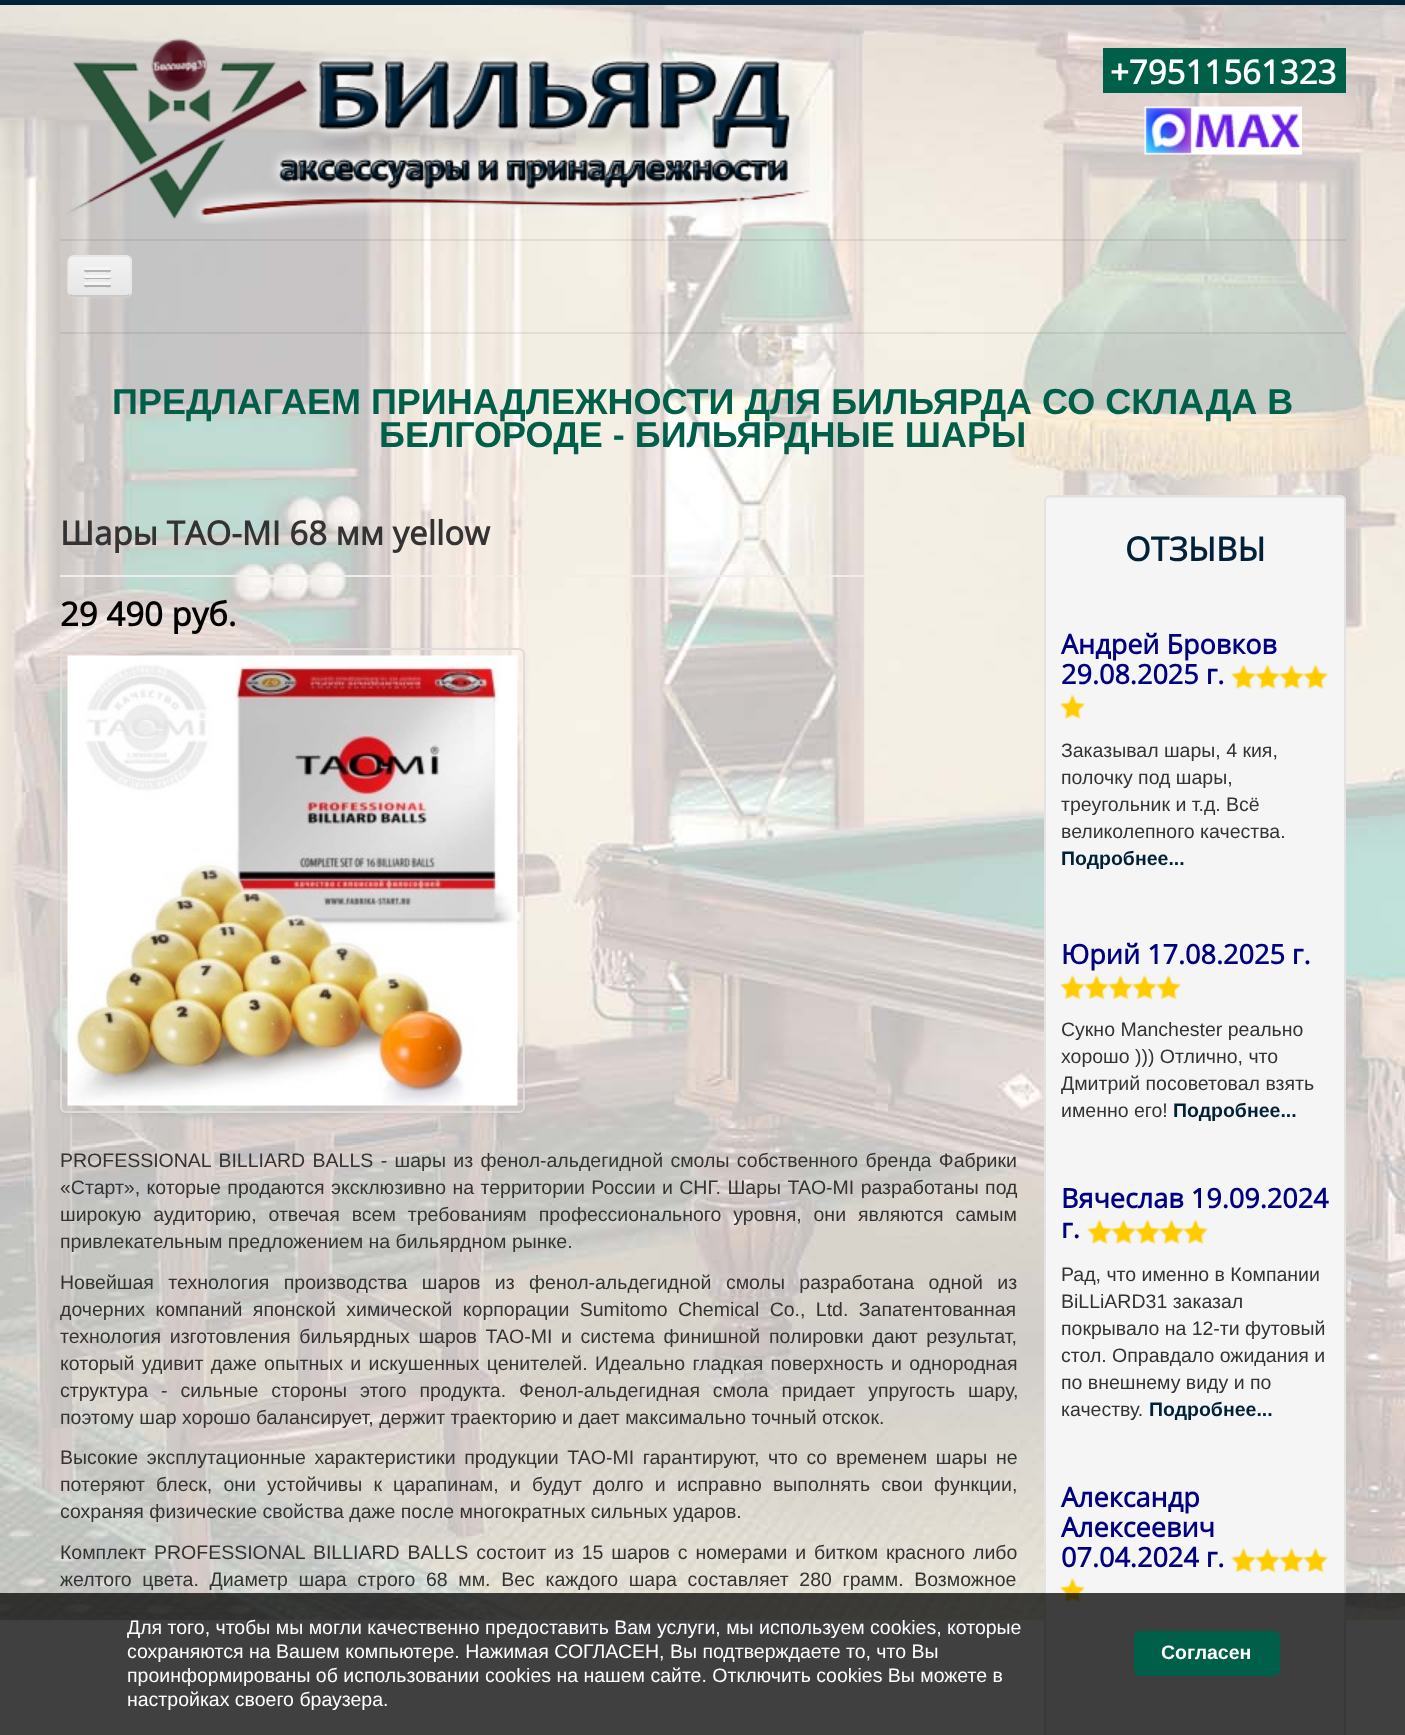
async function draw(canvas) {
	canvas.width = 1405;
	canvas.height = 1735;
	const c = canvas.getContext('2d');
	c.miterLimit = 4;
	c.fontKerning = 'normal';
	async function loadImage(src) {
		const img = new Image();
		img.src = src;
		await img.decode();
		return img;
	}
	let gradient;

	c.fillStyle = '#fff';
	c.fillRect(0, 0, 1405, 1735);
	c.drawImage(await loadImage('img1.png'), 0, 5, 1405, 1616);
	c.fillStyle = '#002137';
	c.fillRect(0, 0, 1405, 5);
	c.drawImage(await loadImage('img2.png'), 66, 38, 744, 186);
	c.fillStyle = '#005f48';
	c.fillRect(1103, 48, 243, 45);
	c.font = 'bold 33px Open Sans';
	c.fillStyle = '#fff';
	c.fillText('+79511561323', 1110, 84);
	c.drawImage(await loadImage('img3.png'), 1144, 106, 158, 49);
	c.fillStyle = '#00000012';
	c.fillRect(60, 239, 1286, 2);
	c.fillRect(60, 332, 1286, 2);
	c.fillStyle = '#ffffff12';
	c.beginPath();
	c.moveTo(68, 293);
	c.bezierCurveTo(68, 297, 71, 299, 74, 299);
	c.lineTo(126, 299);
	c.bezierCurveTo(129, 299, 132, 296, 132, 293);
	c.lineTo(132, 291);
	c.bezierCurveTo(132, 294, 129, 297, 126, 297);
	c.lineTo(74, 297);
	c.bezierCurveTo(71, 297, 69, 296, 68, 293);
	c.closePath();
	c.fill();
	c.fillStyle = '#ededed';
	c.beginPath();
	c.roundRect(68, 255, 64, 42, 6);
	c.fill();
	c.save();
	c.beginPath();
	c.roundRect(68, 255, 64, 42, 6);
	c.clip();
	gradient = c.createLinearGradient(100, 257, 100, 296);
	gradient.addColorStop(0, '#f2f2f2');
	gradient.addColorStop(1, '#e6e6e6');
	c.fillStyle = gradient;
	c.fillRect(68, 257, 64, 39);
	c.restore();
	c.beginPath();
	c.moveTo(129.5, 294.5);
	c.bezierCurveTo(128.5, 295.5, 127.5, 296, 126, 296);
	c.lineTo(73.5, 296);
	c.bezierCurveTo(72, 296, 71, 295.5, 70, 294.5);
	c.strokeStyle = '#bfbfbf';
	c.lineWidth = 1.5;
	c.stroke();
	c.beginPath();
	c.moveTo(70, 294.5);
	c.bezierCurveTo(69, 293.5, 68, 292.5, 68, 291);
	c.lineTo(68, 261);
	c.bezierCurveTo(68, 259.5, 69, 258.5, 70, 257.5);
	c.bezierCurveTo(71, 256.5, 72, 256, 73.5, 256);
	c.lineTo(126, 256);
	c.bezierCurveTo(127.5, 256, 128.5, 256.5, 129.5, 257.5);
	c.bezierCurveTo(130.5, 258.5, 131, 259.5, 131, 261);
	c.lineTo(131, 291);
	c.bezierCurveTo(131, 292.5, 130.5, 293.5, 129.5, 294.5);
	c.strokeStyle = '#e6e6e6';
	c.stroke();
	c.fillStyle = '#b3b3b3';
	c.beginPath();
	c.moveTo(84.5, 269.5);
	c.lineTo(84, 271);
	c.bezierCurveTo(84.5, 273, 89, 272, 89.5, 272);
	c.lineTo(105.5, 272);
	c.bezierCurveTo(106, 272, 110.5, 273, 111, 271);
	c.lineTo(110.5, 269.5);
	c.lineTo(109.5, 270);
	c.lineTo(85.5, 270);
	c.closePath();
	c.fill();
	c.fillStyle = '#f5f5f5';
	c.beginPath();
	c.roundRect(84, 267, 27, 3, 1.5);
	c.fill();
	c.fillStyle = '#b0b0b0';
	c.beginPath();
	c.moveTo(84, 277);
	c.bezierCurveTo(82.5, 280, 89.5, 279, 89.5, 279);
	c.lineTo(105.5, 279);
	c.bezierCurveTo(105.5, 279, 112.5, 280, 111, 277);
	c.bezierCurveTo(110.5, 277, 110, 277.5, 109.5, 277.5);
	c.lineTo(85.5, 277.5);
	c.bezierCurveTo(85, 277.5, 84.5, 277, 84, 277);
	c.closePath();
	c.fill();
	c.fillStyle = '#f5f5f5';
	c.beginPath();
	c.roundRect(84, 275, 27, 3, 1.5);
	c.fill();
	c.fillStyle = '#afafaf';
	c.beginPath();
	c.moveTo(84.5, 284.5);
	c.lineTo(84, 286);
	c.bezierCurveTo(84.5, 288, 89, 287, 89.5, 287);
	c.lineTo(105.5, 287);
	c.bezierCurveTo(106, 287, 110.5, 288, 111, 286);
	c.lineTo(110.5, 284.5);
	c.lineTo(109.5, 285);
	c.lineTo(85.5, 285);
	c.closePath();
	c.fill();
	c.fillStyle = '#f5f5f5';
	c.beginPath();
	c.roundRect(84, 282, 27, 3, 1.5);
	c.fill();
	c.font = 'bold 36px Liberation Sans';
	c.fillStyle = '#005f48';
	c.fillText('ПРЕДЛАГАЕМ ПРИНАДЛЕЖНОСТИ ДЛЯ БИЛЬЯРДА СО СКЛАДА В', 112, 414);
	c.fillText('БЕЛГОРОДЕ - БИЛЬЯРДНЫЕ ШАРЫ', 379, 447);
	c.fillStyle = '#eee';
	c.fillRect(60, 575, 957, 2);
	c.font = 'bold 33px Open Sans';
	c.fillStyle = '#333';
	c.fillText('Шары TAO-MI 68 мм yellow', 60, 545);
	c.fillStyle = '#000';
	c.fillText('29 490 руб.', 60, 626);
	c.save();
	c.beginPath();
	c.moveTo(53, 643);
	c.lineTo(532, 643);
	c.lineTo(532, 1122);
	c.lineTo(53, 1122);
	c.closePath();
	c.moveTo(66, 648);
	c.lineTo(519, 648);
	c.bezierCurveTo(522.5, 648, 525, 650.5, 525, 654);
	c.lineTo(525, 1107);
	c.bezierCurveTo(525, 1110.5, 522.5, 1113, 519, 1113);
	c.lineTo(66, 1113);
	c.bezierCurveTo(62.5, 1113, 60, 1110.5, 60, 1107);
	c.lineTo(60, 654);
	c.bezierCurveTo(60, 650.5, 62.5, 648, 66, 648);
	c.closePath();
	c.clip('evenodd');
	c.fillStyle = '#0000000f';
	c.filter = 'blur(2px)';
	c.beginPath();
	c.roundRect(60, 650, 465, 465, 6);
	c.fill();
	c.filter = 'none';
	c.restore();
	c.beginPath();
	c.roundRect(61, 649, 463, 463, 5);
	c.strokeStyle = '#ddd';
	c.lineWidth = 2;
	c.stroke();
	c.drawImage(await loadImage('img4.png'), 67, 655, 451, 451);
	c.wordSpacing = '2px';
	c.font = '19.5px Liberation Sans';
	c.fillStyle = '#333';
	c.fillText('PROFESSIONAL BILLIARD BALLS - шары из фенол-альдегидной смолы собственного бренда Фабрики', 60, 1167);
	c.wordSpacing = '1px';
	c.fillText('«Старт», которые продаются эксклюзивно на территории России и СНГ. Шары TAO-MI разработаны под', 60, 1194);
	c.wordSpacing = '6.5px';
	c.fillText('широкую аудиторию, отвечая всем требованиям профессионального уровня, они являются самым', 60, 1221);
	c.wordSpacing = '0px';
	c.fillText('привлекательным предложением на бильярдном рынке.', 60, 1248);
	c.wordSpacing = '9px';
	c.fillText('Новейшая технология производства шаров из фенол-альдегидной смолы разработана одной из', 60, 1289);
	c.wordSpacing = '5px';
	c.fillText('дочерних компаний японской химической корпорации Sumitomo Chemical Co., Ltd. Запатентованная', 60, 1316);
	c.wordSpacing = '3.25px';
	c.fillText('технология изготовления бильярдных шаров TAO-MI и система финишной полировки дают результат,', 60, 1343);
	c.wordSpacing = '1.9px';
	c.fillText('который удивит даже опытных и искушенных ценителей. Идеально гладкая поверхность и однородная', 60, 1370);
	c.wordSpacing = '7.5px';
	c.fillText('структура - сильные стороны этого продукта. Фенол-альдегидная смола придает упругость шару,', 60, 1397);
	c.wordSpacing = '0px';
	c.fillText('поэтому шар хорошо балансирует, держит траекторию и дает максимально точный отскок.', 60, 1424);
	c.wordSpacing = '3.25px';
	c.fillText('Высокие эксплутационные характеристики продукции TAO-MI гарантируют, что со временем шары не', 60, 1464);
	c.wordSpacing = '5.75px';
	c.fillText('потеряют блеск, они устойчивы к царапинам, и будут долго и исправно выполнять свои функции,', 60, 1491);
	c.wordSpacing = '0px';
	c.fillText('сохраняя физические свойства даже после многократных сильных ударов.', 60, 1518);
	c.wordSpacing = '2.5px';
	c.fillText('Комплект PROFESSIONAL BILLIARD BALLS состоит из 15 шаров с номерами и битком красного либо', 60, 1559);
	c.wordSpacing = '5.25px';
	c.fillText('желтого цвета. Диаметр шара строго 68 мм. Вес каждого шара составляет 280 грамм. Возможное', 60, 1586);
	c.fillStyle = '#f5f5f5';
	c.beginPath();
	c.roundRect(1044, 495, 302, 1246, 6);
	c.fill();
	c.fillStyle = '#e9e9e9';
	c.beginPath();
	c.moveTo(1050, 498);
	c.lineTo(1340, 498);
	c.bezierCurveTo(1342, 498, 1344, 500, 1344, 502);
	c.bezierCurveTo(1344, 499, 1342, 497, 1339, 497);
	c.lineTo(1051, 497);
	c.bezierCurveTo(1048, 497, 1046, 499, 1046, 502);
	c.bezierCurveTo(1046, 500, 1048, 498, 1050, 498);
	c.closePath();
	c.fill();
	c.beginPath();
	c.roundRect(1045, 496, 300, 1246, 5);
	c.strokeStyle = '#e3e3e3';
	c.stroke();
	c.wordSpacing = '0px';
	c.font = 'bold 33px Open Sans';
	c.fillStyle = '#002137';
	c.fillText('ОТЗЫВЫ', 1125, 561);
	c.font = 'bold 27px Open Sans';
	c.fillStyle = '#000080';
	c.fillText('Андрей Бровков', 1061, 654);
	c.fillText('29.08.2025 г.', 1061, 684);
	c.drawImage(await loadImage('img5.png'), 1231, 664, 25, 25);
	c.drawImage(await loadImage('img6.png'), 1255, 664, 25, 25);
	c.drawImage(await loadImage('img7.png'), 1279, 664, 25, 25);
	c.drawImage(await loadImage('img8.png'), 1303, 664, 25, 25);
	c.drawImage(await loadImage('img9.png'), 1060, 694, 25, 25);
	c.font = '19.5px Liberation Sans';
	c.fillStyle = '#333';
	for (const [text, x, y] of [
		['Заказывал шары, 4 кия,', 1061, 757],
		['полочку под шары,', 1061, 784],
		['треугольник и т.д. Всё', 1061, 811],
		['великолепного качества.', 1061, 838],
	]) {
		c.fillText(text, x, y);
	}
	c.font = 'bold 19.5px Liberation Sans';
	c.fillStyle = '#002137';
	c.fillText('Подробнее...', 1061, 865);
	c.font = 'bold 27px Open Sans';
	c.fillStyle = '#000080';
	c.fillText('Юрий 17.08.2025 г.', 1061, 964);
	c.drawImage(await loadImage('img10.png'), 1060, 975, 25, 24);
	c.drawImage(await loadImage('img11.png'), 1084, 975, 25, 24);
	c.drawImage(await loadImage('img11.png'), 1108, 975, 25, 24);
	c.drawImage(await loadImage('img12.png'), 1132, 975, 25, 24);
	c.drawImage(await loadImage('img12.png'), 1156, 975, 25, 24);
	c.font = '19.5px Liberation Sans';
	c.fillStyle = '#333';
	for (const [text, x, y] of [
		['Сукно Manchester реально', 1061, 1036],
		['хорошо ))) Отлично, что', 1061, 1063],
		['Дмитрий посоветовал взять', 1061, 1090],
		['именно его!', 1061, 1117],
	]) {
		c.fillText(text, x, y);
	}
	c.font = 'bold 19.5px Liberation Sans';
	c.fillStyle = '#002137';
	c.fillText('Подробнее...', 1173, 1117);
	c.font = 'bold 27px Open Sans';
	c.fillStyle = '#000080';
	c.fillText('Вячеслав 19.09.2024', 1061, 1208);
	c.fillText('г.', 1061, 1238);
	c.drawImage(await loadImage('img5.png'), 1087, 1219, 25, 25);
	c.drawImage(await loadImage('img6.png'), 1111, 1219, 25, 25);
	c.drawImage(await loadImage('img8.png'), 1135, 1219, 25, 25);
	c.drawImage(await loadImage('img8.png'), 1159, 1219, 25, 25);
	c.drawImage(await loadImage('img8.png'), 1183, 1219, 25, 25);
	c.font = '19.5px Liberation Sans';
	c.fillStyle = '#333';
	for (const [text, x, y] of [
		['Рад, что именно в Компании', 1061, 1281],
		['BiLLiARD31 заказал', 1061, 1308],
		['покрывало на 12-ти футовый', 1061, 1335],
		['стол. Оправдало ожидания и', 1061, 1362],
		['по внешнему виду и по', 1061, 1389],
		['качеству.', 1061, 1416],
	]) {
		c.fillText(text, x, y);
	}
	c.font = 'bold 19.5px Liberation Sans';
	c.fillStyle = '#002137';
	c.fillText('Подробнее...', 1149, 1416);
	c.font = 'bold 27px Open Sans';
	c.fillStyle = '#000080';
	for (const [text, x, y] of [
		['Александр', 1061, 1507],
		['Алексеевич', 1061, 1537],
		['07.04.2024 г.', 1061, 1567],
	]) {
		c.fillText(text, x, y);
	}
	c.drawImage(await loadImage('img13.png'), 1231, 1548, 25, 24);
	c.drawImage(await loadImage('img11.png'), 1255, 1548, 25, 24);
	c.drawImage(await loadImage('img14.png'), 1279, 1548, 25, 24);
	c.drawImage(await loadImage('img12.png'), 1303, 1548, 25, 24);
	c.drawImage(await loadImage('img10.png'), 1060, 1578, 25, 24);
	c.fillStyle = '#000000bf';
	c.fillRect(0, 1593, 1405, 142);
	c.font = '19.5px Liberation Sans';
	c.fillStyle = '#fff';
	for (const [text, x, y] of [
		['Для того, чтобы мы могли качественно предоставить Вам услуги, мы используем cookies, которые', 127, 1634],
		['сохраняются на Вашем компьютере. Нажимая СОГЛАСЕН, Вы подтверждаете то, что Вы', 127, 1658],
		['проинформированы об использовании cookies на нашем сайте. Отключить cookies Вы можете в', 127, 1682],
		['настройках своего браузера.', 127, 1706],
	]) {
		c.fillText(text, x, y);
	}
	c.fillStyle = '#005f48';
	c.beginPath();
	c.roundRect(1134, 1631, 146, 45, 6);
	c.fill();
	c.font = 'bold 19.5px Liberation Sans';
	c.fillStyle = '#fff';
	c.fillText('Согласен', 1161, 1659);
}

draw(document.querySelector('canvas'));
